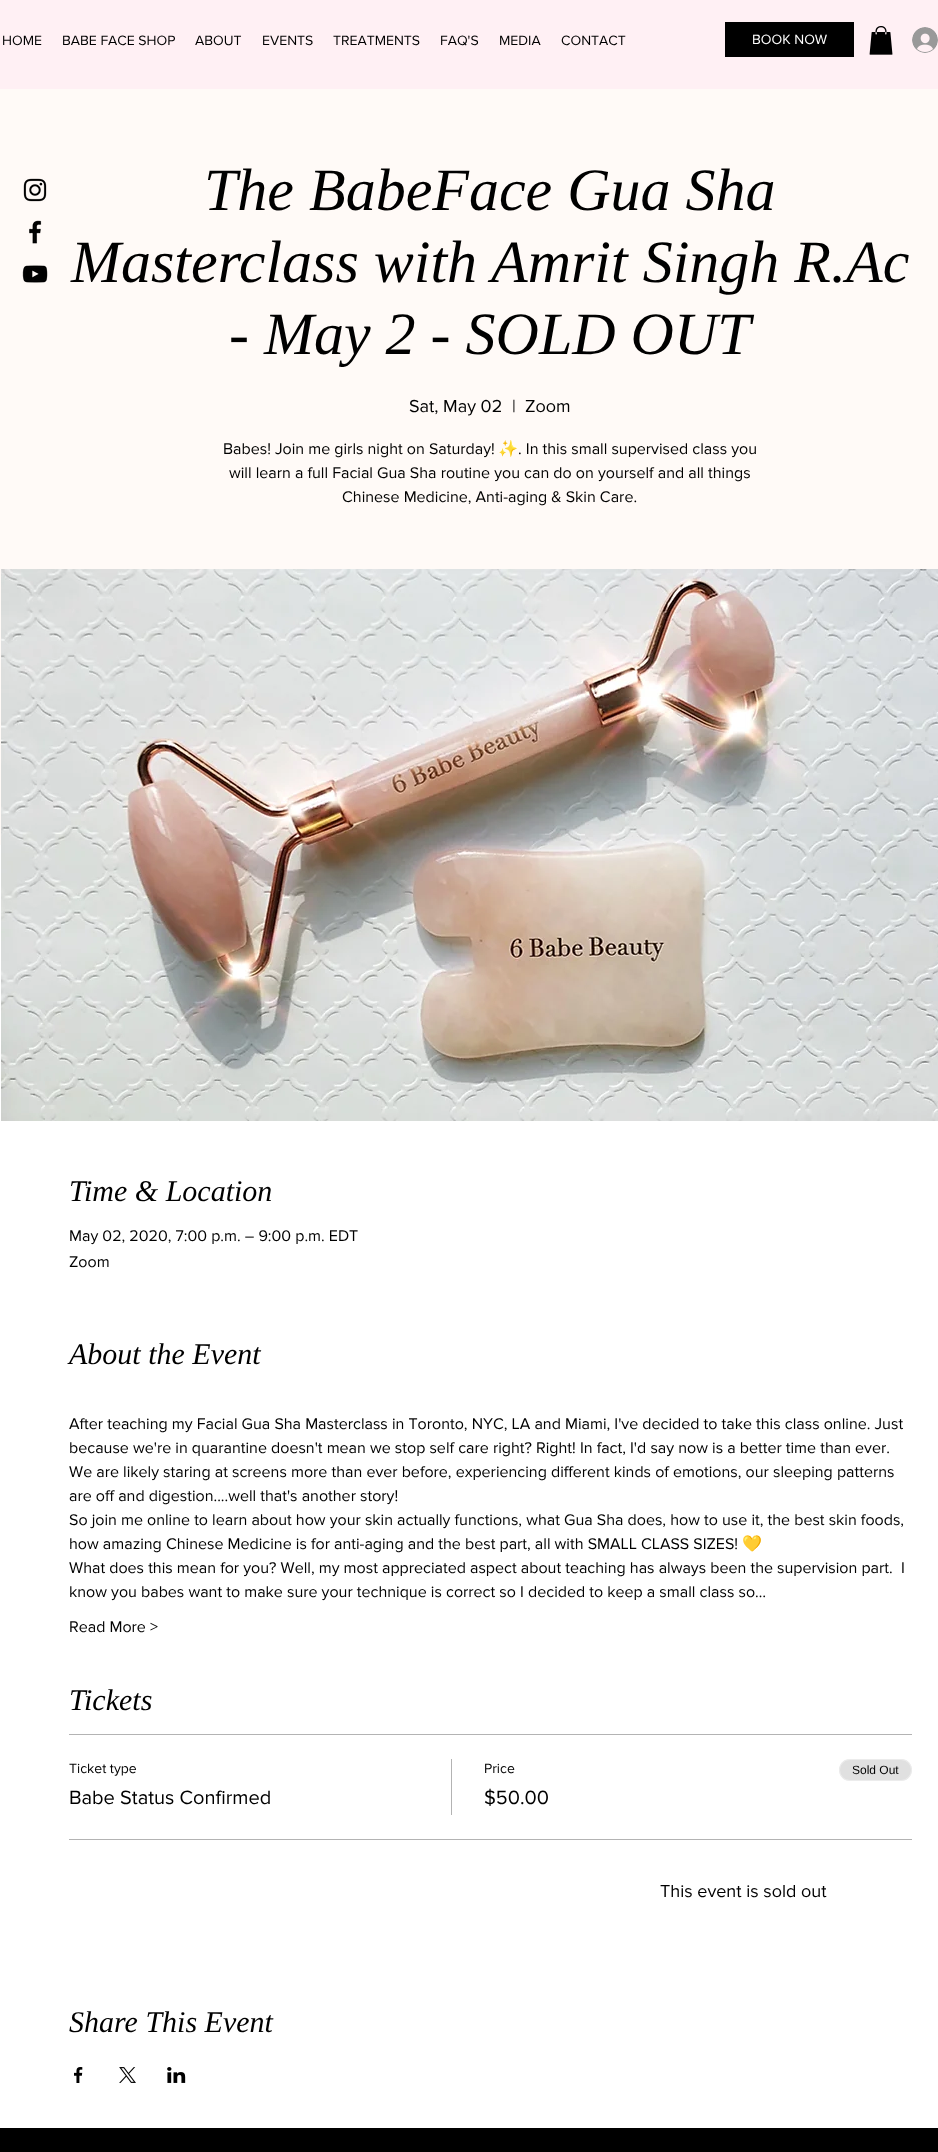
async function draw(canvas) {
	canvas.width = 938;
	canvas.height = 2152;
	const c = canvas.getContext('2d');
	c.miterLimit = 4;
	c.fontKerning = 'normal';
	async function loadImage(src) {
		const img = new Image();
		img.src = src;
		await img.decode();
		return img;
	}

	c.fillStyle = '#fff';
	c.fillRect(0, 0, 938, 2152);
	c.fillStyle = '#fff0f4';
	c.fillRect(0, 0, 938, 89);
	c.font = '14px "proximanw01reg"';
	c.fillStyle = '#000';
	for (const [text, x, y] of [
		['HOME', 2, 45],
		['BABE FACE SHOP', 62, 45],
		['ABOUT', 195, 45],
		['EVENTS', 262, 45],
		['TREATMENTS', 333, 45],
		['FAQ\'S', 440, 45],
		['MEDIA', 499, 45],
		['CONTACT', 561, 45],
	]) {
		c.fillText(text, x, y);
	}
	c.fillRect(725, 22, 129, 35);
	c.fillStyle = '#fff';
	c.fillText('BOOK NOW', 752, 44);
	c.drawImage(await loadImage('img1.png'), 869, 26, 24, 29);
	c.drawImage(await loadImage('img2.png'), 912, 27, 26, 26);
	c.fillStyle = '#fffaf7';
	c.fillRect(0, 89, 938, 756);
	c.drawImage(await loadImage('img3.png'), 23, 178, 24, 24);
	c.drawImage(await loadImage('img4.png'), 29, 220, 13, 24);
	c.drawImage(await loadImage('img5.png'), 22, 265, 26, 18);
	c.font = 'italic 60px Liberation Serif';
	c.fillStyle = '#000';
	for (const [text, x, y] of [
		['The BabeFace Gua Sha', 204, 210],
		['Masterclass with Amrit Singh R.Ac', 71, 282],
		['- May 2 - SOLD OUT', 229, 354],
	]) {
		c.fillText(text, x, y);
	}
	c.font = '18px "proximanw01reg"';
	for (const [text, x, y] of [
		['Sat, May 02', 409, 412],
		['|', 512, 412],
		['Zoom', 525, 412],
	]) {
		c.fillText(text, x, y);
	}
	c.font = '16px "proximanw01reg"';
	c.fillText('Babes! Join me girls night on Saturday!', 223, 454);
	c.font = '16px Noto Color Emoji';
	c.fillText('✨', 498, 454);
	c.font = '16px "proximanw01reg"';
	for (const [text, x, y] of [
		['. In this small supervised class you', 518, 454],
		['will learn a full Facial Gua Sha routine you can do on yourself and all things', 229, 478],
		['Chinese Medicine, Anti-aging & Skin Care.', 342, 502],
	]) {
		c.fillText(text, x, y);
	}
	c.drawImage(await loadImage('img6.png'), 1, 569, 937, 552);
	c.font = 'italic 30px Liberation Serif';
	c.fillText('Time & Location', 69, 1201);
	c.font = '16px "proximanw01reg"';
	c.fillText('May 02, 2020, 7:00 p.m. – 9:00 p.m. EDT', 69, 1241);
	c.fillText('Zoom', 69, 1267);
	c.font = 'italic 30px Liberation Serif';
	c.fillText('About the Event', 69, 1364);
	c.font = '16px "proximanw01reg"';
	for (const [text, x, y] of [
		['After teaching my Facial Gua Sha Masterclass in Toronto, NYC, LA and Miami, I\'ve decided to take this class online. Just', 69, 1429],
		['because we\'re in quarantine doesn\'t mean we stop self care right? Right! In fact, I\'d say now is a better time than ever.', 69, 1453],
		['We are likely staring at screens more than ever before, experiencing different kinds of emotions, our sleeping patterns', 69, 1477],
		['are off and digestion....well that\'s another story!', 69, 1501],
		['So join me online to learn about how your skin actually functions, what Gua Sha does, how to use it, the best skin foods,', 69, 1525],
		['how amazing Chinese Medicine is for anti-aging and the best part, all with SMALL CLASS SIZES!', 69, 1549],
	]) {
		c.fillText(text, x, y);
	}
	c.font = '16px Noto Color Emoji';
	c.fillText('💛', 742, 1549);
	c.font = '16px "proximanw01reg"';
	for (const [text, x, y] of [
		['What does this mean for you? Well, my most appreciated aspect about teaching has always been the supervision part.  I', 69, 1573],
		['know you babes want to make sure your technique is correct so I decided to keep a small class so…', 69, 1597],
		['Read More >', 69, 1632],
	]) {
		c.fillText(text, x, y);
	}
	c.font = 'italic 30px Liberation Serif';
	c.fillText('Tickets', 69, 1710);
	c.fillStyle = '#b3b3b3';
	c.fillRect(69, 1734, 843, 1);
	c.fillRect(69, 1839, 843, 1);
	c.font = '14px "proximanw01reg"';
	c.fillStyle = '#000';
	c.fillText('Ticket type', 69, 1773);
	c.font = '20px "proximanw01reg"';
	c.fillText('Babe Status Confirmed', 69, 1804);
	c.fillStyle = '#b3b3b3';
	c.fillRect(451, 1759, 1, 56);
	c.font = '14px "proximanw01reg"';
	c.fillStyle = '#000';
	c.fillText('Price', 484, 1773);
	c.font = '20px "proximanw01reg"';
	c.fillText('$50.00', 484, 1804);
	c.fillStyle = '#e0e0e0';
	c.beginPath();
	c.roundRect(839, 1759, 73, 22, 11);
	c.fill();
	c.beginPath();
	c.roundRect(839.5, 1759.5, 72, 21, 10.5);
	c.strokeStyle = '#ffffff66';
	c.stroke();
	c.font = '12px Liberation Sans';
	c.fillStyle = '#000';
	c.fillText('Sold Out', 852, 1774);
	c.font = '18px "proximanw01reg"';
	c.fillText('This event is sold out', 660, 1897);
	c.font = 'italic 30px Liberation Serif';
	c.fillText('Share This Event', 69, 2032);
	c.drawImage(await loadImage('img7.png'), 74, 2067, 9, 16);
	c.drawImage(await loadImage('img8.png'), 119, 2067, 17, 16);
	c.drawImage(await loadImage('img9.png'), 167, 2067, 19, 16);
	c.fillRect(0, 2128, 938, 24);
}

draw(document.querySelector('canvas'));
